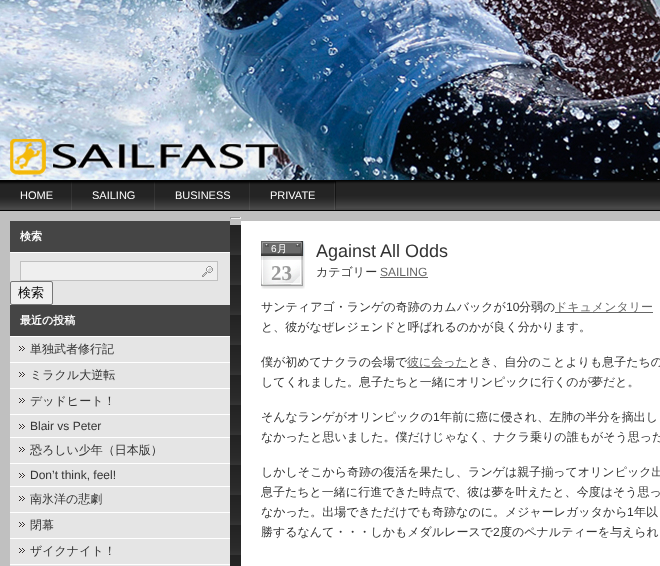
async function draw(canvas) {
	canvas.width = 660;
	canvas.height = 566;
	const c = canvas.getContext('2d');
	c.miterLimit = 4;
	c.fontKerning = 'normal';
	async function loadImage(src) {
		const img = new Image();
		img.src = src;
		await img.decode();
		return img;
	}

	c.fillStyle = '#c0c0c0';
	c.fillRect(0, 0, 660, 566);
	c.drawImage(await loadImage('img1.png'), 0, 0, 660, 180);
	c.drawImage(await loadImage('img2.png'), 0, 180, 660, 31);
	c.drawImage(await loadImage('img3.png'), 0, 181, 72, 29);
	c.drawImage(await loadImage('img4.png'), 72, 181, 83, 29);
	c.drawImage(await loadImage('img5.png'), 155, 181, 95, 29);
	c.drawImage(await loadImage('img6.png'), 250, 181, 86, 29);
	c.font = '11px Liberation Sans';
	c.fillStyle = '#fff';
	for (const [text, x, y] of [
		['HOME', 20, 199],
		['SAILING', 92, 199],
		['BUSINESS', 175, 199],
		['PRIVATE', 270, 199],
	]) {
		c.fillText(text, x, y);
	}
	for (const [x, y, w, h, color] of [
		[230, 217, 11, 1, '#9f9f9f'],
		[240, 217, 1, 2, '#eee'],
		[230, 218, 11, 1, '#eee'],
		[230, 217, 1, 2, '#9f9f9f'],
	]) {
		c.fillStyle = color;
		c.fillRect(x, y, w, h);
	}
	c.drawImage(await loadImage('img7.png'), 230, 225, 11, 341);
	for (const [x, y, w, h, color] of [
		[10, 253, 220, 52, '#e5e5e5'],
		[10, 221, 220, 31, '#454545'],
		[10, 252, 220, 1, '#fff'],
	]) {
		c.fillStyle = color;
		c.fillRect(x, y, w, h);
	}
	c.font = 'bold 11px WenQuanYi Zen Hei';
	c.fillText('検索', 20, 240);
	c.fillStyle = '#efefef';
	c.fillRect(21, 262, 196, 18);
	c.drawImage(await loadImage('img8.png'), 202, 266, 11, 11);
	c.strokeStyle = '#c0c0c0';
	c.strokeRect(20.5, 261.5, 197, 19);
	c.beginPath();
	c.roundRect(10.5, 281.5, 42, 23, 1.5);
	c.fill();
	c.strokeStyle = '#767676';
	c.stroke();
	c.font = '500 13px WenQuanYi Zen Hei';
	c.fillStyle = '#000';
	c.fillText('検索', 18, 297);
	for (const [x, y, w, h, color] of [
		[10, 337, 220, 229, '#e5e5e5'],
		[10, 305, 220, 31, '#454545'],
		[10, 336, 220, 1, '#fff'],
	]) {
		c.fillStyle = color;
		c.fillRect(x, y, w, h);
	}
	c.font = 'bold 11px WenQuanYi Zen Hei';
	c.fillText('最近の投稿', 20, 324);
	c.drawImage(await loadImage('img9.png'), 19, 346, 6, 5);
	c.fillRect(10, 362, 220, 1);
	c.font = '500 12px WenQuanYi Zen Hei';
	c.fillStyle = '#333';
	c.fillText('単独武者修行記', 30, 353);
	c.drawImage(await loadImage('img9.png'), 19, 372, 6, 5);
	c.fillStyle = '#fff';
	c.fillRect(10, 388, 220, 1);
	c.fillStyle = '#333';
	c.fillText('ミラクル大逆転', 30, 379);
	c.drawImage(await loadImage('img9.png'), 19, 398, 6, 5);
	c.fillStyle = '#fff';
	c.fillRect(10, 414, 220, 1);
	c.fillStyle = '#333';
	c.fillText('デッドヒート！', 30, 405);
	c.drawImage(await loadImage('img9.png'), 19, 424, 6, 5);
	c.fillStyle = '#fff';
	c.fillRect(10, 437, 220, 1);
	c.font = '12px Liberation Sans';
	c.fillStyle = '#333';
	c.fillText('Blair vs Peter', 30, 430);
	c.drawImage(await loadImage('img9.png'), 19, 447, 6, 5);
	c.fillStyle = '#fff';
	c.fillRect(10, 463, 220, 1);
	c.font = '500 12px WenQuanYi Zen Hei';
	c.fillStyle = '#333';
	c.fillText('恐ろしい少年（日本版）', 30, 454);
	c.drawImage(await loadImage('img9.png'), 19, 473, 6, 5);
	c.fillStyle = '#fff';
	c.fillRect(10, 486, 220, 1);
	c.font = '12px Liberation Sans';
	c.fillStyle = '#333';
	c.fillText('Don’t think, feel!', 30, 479);
	c.drawImage(await loadImage('img9.png'), 19, 496, 6, 5);
	c.fillStyle = '#fff';
	c.fillRect(10, 512, 220, 1);
	c.font = '500 12px WenQuanYi Zen Hei';
	c.fillStyle = '#333';
	c.fillText('南氷洋の悲劇', 30, 503);
	c.drawImage(await loadImage('img9.png'), 19, 522, 6, 5);
	c.fillStyle = '#fff';
	c.fillRect(10, 538, 220, 1);
	c.fillStyle = '#333';
	c.fillText('閉幕', 30, 529);
	c.drawImage(await loadImage('img9.png'), 19, 548, 6, 5);
	c.fillStyle = '#fff';
	c.fillRect(10, 564, 220, 1);
	c.fillStyle = '#333';
	c.fillText('ザイクナイト！', 30, 555);
	c.fillStyle = '#fff';
	c.fillRect(241, 221, 419, 345);
	c.drawImage(await loadImage('img10.png'), 261, 241, 44, 48);
	c.font = '10px Liberation Sans';
	c.fillText('6', 271, 252);
	c.font = '500 10px WenQuanYi Zen Hei';
	c.fillText('月', 277, 252);
	c.font = 'bold 21px Liberation Serif';
	c.fillStyle = '#999';
	c.fillText('23', 271, 280);
	c.font = '18px Liberation Sans';
	c.fillStyle = '#333';
	c.fillText('Against All Odds', 316, 257);
	c.font = '500 12px WenQuanYi Zen Hei';
	c.fillText('カテゴリー', 316, 276);
	c.font = '12px Liberation Sans';
	c.fillStyle = '#666';
	c.fillText('SAILING', 380, 276);
	c.fillRect(380, 277, 48, 1);
	c.font = '500 12px WenQuanYi Zen Hei';
	c.fillStyle = '#333';
	c.fillText('サンティアゴ・ランゲの奇跡のカムバックが', 261, 311);
	c.font = '12px Liberation Sans';
	c.fillText('10', 506, 311);
	c.font = '500 12px WenQuanYi Zen Hei';
	c.fillText('分弱の', 519, 311);
	c.fillStyle = '#666';
	c.fillRect(555, 312, 98, 1);
	c.fillText('ドキュメンタリー', 555, 311);
	c.fillStyle = '#333';
	c.fillText('と、彼がなぜレジェンドと呼ばれるのかが良く分かります。', 261, 331);
	c.fillText('僕が初めてナクラの会場で', 261, 366);
	c.fillStyle = '#666';
	c.fillRect(407, 367, 61, 1);
	c.fillText('彼に会った', 407, 366);
	c.fillStyle = '#333';
	for (const [text, x, y] of [
		['とき、自分のことよりも息子たちの', 468, 366],
		['してくれました。息子たちと一緒にオリンピックに行くのが夢だと。', 261, 386],
		['そんなランゲがオリンピックの', 261, 421],
	]) {
		c.fillText(text, x, y);
	}
	c.font = '12px Liberation Sans';
	c.fillText('1', 433, 421);
	c.font = '500 12px WenQuanYi Zen Hei';
	for (const [text, x, y] of [
		['年前に癌に侵され、左肺の半分を摘出し', 440, 421],
		['なかったと思いました。僕だけじゃなく、ナクラ乗りの誰もがそう思った', 261, 441],
		['しかしそこから奇跡の復活を果たし、ランゲは親子揃ってオリンピック出', 261, 476],
		['息子たちと一緒に行進できた時点で、彼は夢を叶えたと、今度はそう思っ', 261, 496],
		['なかった。出場できただけでも奇跡なのに。メジャーレガッタから', 261, 516],
	]) {
		c.fillText(text, x, y);
	}
	c.font = '12px Liberation Sans';
	c.fillText('1', 627, 516);
	c.font = '500 12px WenQuanYi Zen Hei';
	c.fillText('年以', 634, 516);
	c.fillText('勝するなんて・・・しかもメダルレースで', 261, 536);
	c.font = '12px Liberation Sans';
	c.fillText('2', 493, 536);
	c.font = '500 12px WenQuanYi Zen Hei';
	c.fillText('度のペナルティーを与えられ', 500, 536);
}

draw(document.querySelector('canvas'));
